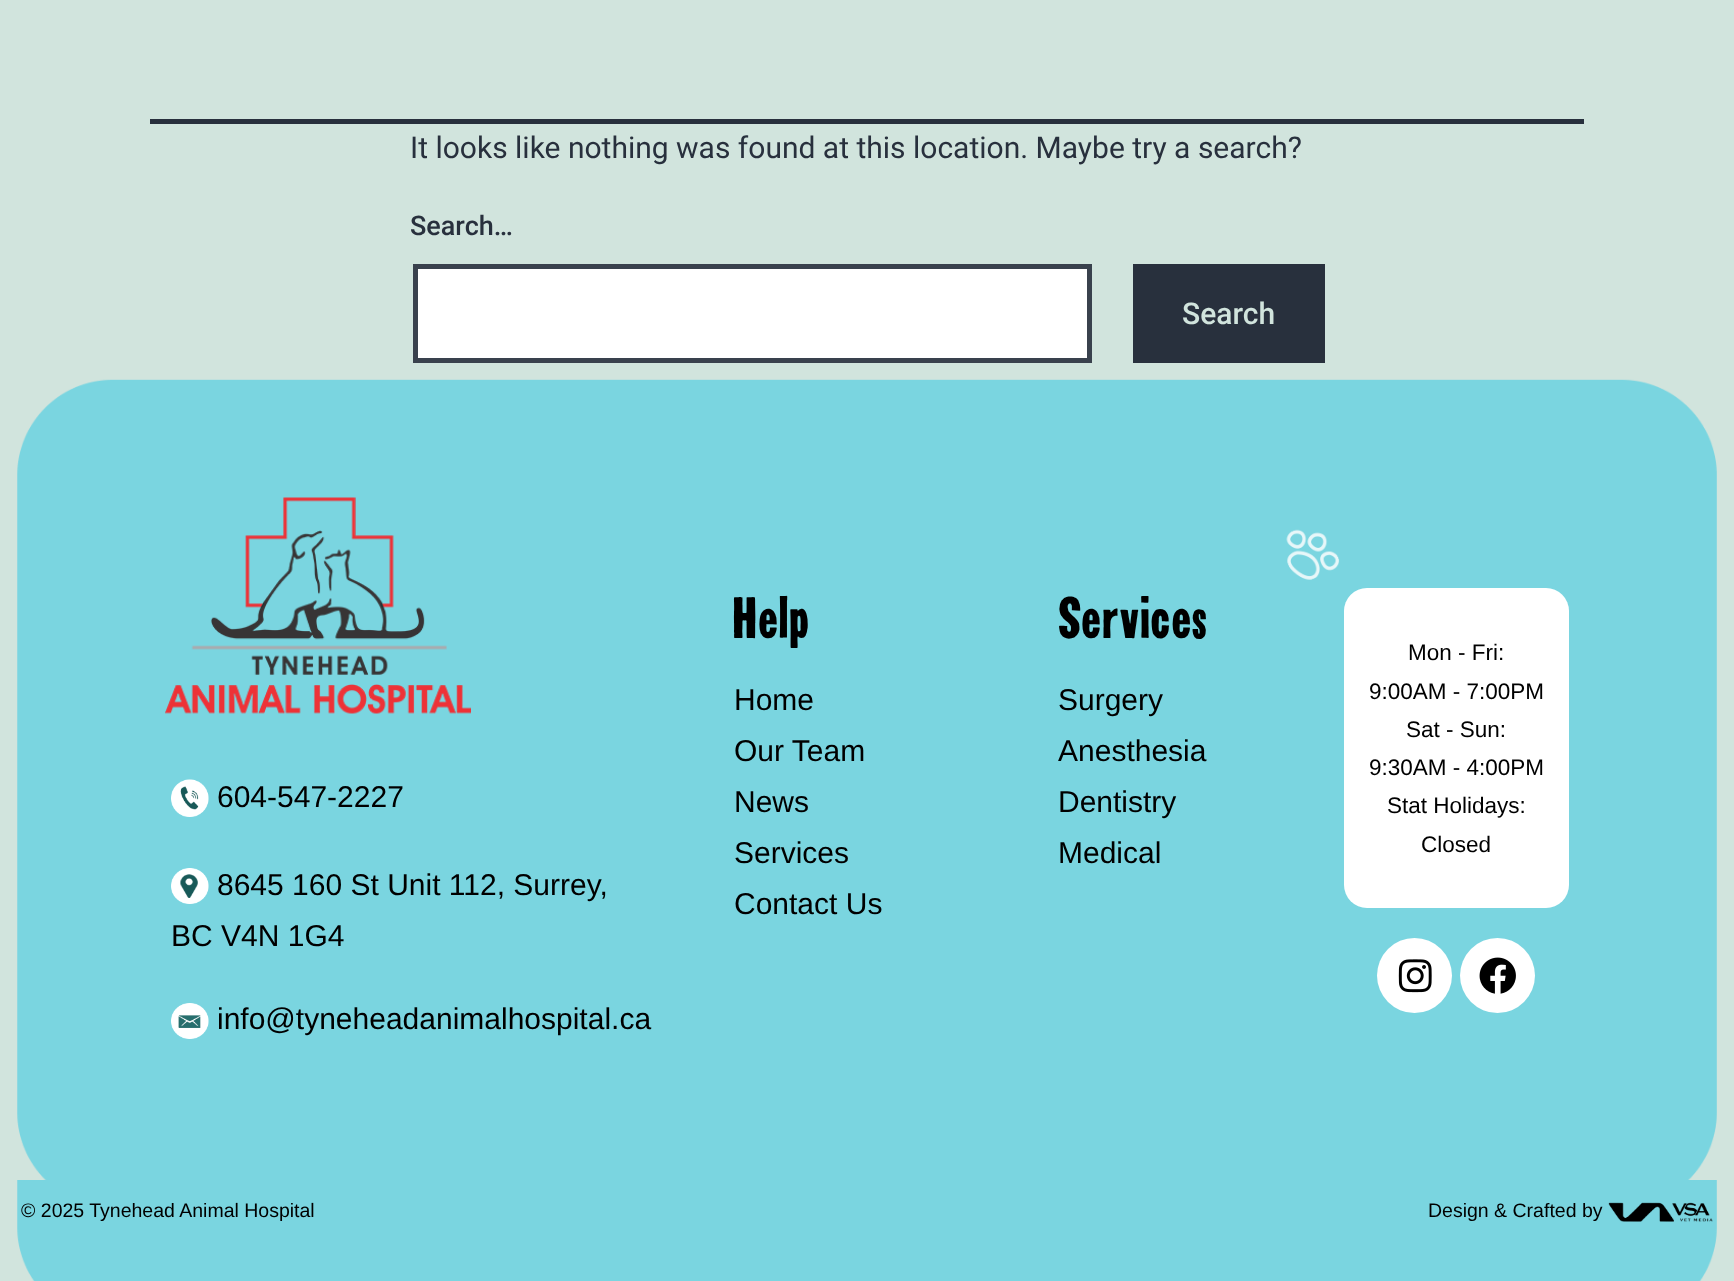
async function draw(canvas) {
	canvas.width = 1734;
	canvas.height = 1281;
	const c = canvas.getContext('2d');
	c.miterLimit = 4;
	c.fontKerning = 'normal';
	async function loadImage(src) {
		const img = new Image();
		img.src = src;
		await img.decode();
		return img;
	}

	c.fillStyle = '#d1e4dd';
	c.fillRect(0, 0, 1734, 1281);
	c.fillStyle = '#28303d';
	c.fillRect(150, 119, 1434, 5);
	c.font = '30px Roboto';
	c.fillText('It looks like nothing was found at this location. Maybe try a search?', 410, 158);
	c.font = '500 27px Roboto';
	c.fillText('Search…', 410, 235);
	c.fillStyle = '#fff';
	c.beginPath();
	c.rect(415.5, 266.5, 674, 94);
	c.fill();
	c.strokeStyle = '#39414d';
	c.lineWidth = 5;
	c.stroke();
	c.fillStyle = '#28303d';
	c.fillRect(1133, 264, 192, 99);
	c.font = '500 30px Roboto';
	c.fillStyle = '#d1e4dd';
	c.fillText('Search', 1182, 324);
	c.drawImage(await loadImage('img1.png'), 17, 379, 1700, 801);
	c.letterSpacing = '1.25px';
	c.font = '500 55.5px "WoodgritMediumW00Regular"';
	c.fillStyle = '#000';
	c.fillText('Help', 734, 638);
	c.letterSpacing = '0px';
	c.font = '30px Liberation Sans';
	for (const [text, x, y] of [
		['Home', 734, 710],
		['Our Team', 734, 761],
		['News', 734, 812],
		['Services', 734, 863],
		['Contact Us', 734, 914],
	]) {
		c.fillText(text, x, y);
	}
	c.letterSpacing = '1.25px';
	c.font = '500 55.5px "WoodgritMediumW00Regular"';
	c.fillText('Services', 1058, 638);
	c.letterSpacing = '0px';
	c.font = '30px Liberation Sans';
	for (const [text, x, y] of [
		['Surgery', 1058, 710],
		['Anesthesia', 1058, 761],
		['Dentistry', 1058, 812],
		['Medical', 1058, 863],
	]) {
		c.fillText(text, x, y);
	}
	c.fillStyle = '#fff';
	c.beginPath();
	c.roundRect(1344, 588, 225, 320, 23);
	c.fill();
	c.font = '22.5px Liberation Sans';
	c.fillStyle = '#000';
	for (const [text, x, y] of [
		['Mon - Fri:', 1408, 660],
		['9:00AM - 7:00PM', 1369, 699],
		['Sat - Sun:', 1406, 737],
		['9:30AM - 4:00PM', 1369, 775],
		['Stat Holidays:', 1387, 813],
		['Closed', 1421, 852],
	]) {
		c.fillText(text, x, y);
	}
	c.fillStyle = '#fff';
	c.beginPath();
	c.arc(1414.5, 975.5, 37.5, 0, 2 * Math.PI);
	c.fill();
	c.drawImage(await loadImage('img2.png'), 1398, 959, 34, 34);
	c.beginPath();
	c.arc(1497.5, 975.5, 37.5, 0, 2 * Math.PI);
	c.fill();
	c.drawImage(await loadImage('img3.png'), 1479, 957, 37, 37);
	c.drawImage(await loadImage('img4.png'), 165, 497, 306, 217);
	c.drawImage(await loadImage('img5.png'), 171, 779, 38, 38);
	c.font = '30px Liberation Sans';
	c.fillStyle = '#000';
	c.fillText('604-547-2227', 217, 807);
	c.drawImage(await loadImage('img6.png'), 171, 868, 38, 36);
	c.fillText('8645 160 St Unit 112, Surrey,', 217, 895);
	c.fillText('BC V4N 1G4', 171, 946);
	c.drawImage(await loadImage('img7.png'), 171, 1003, 38, 36);
	c.fillText('info@tyneheadanimalhospital.ca', 217, 1029);
	c.drawImage(await loadImage('img8.png'), 17, 1180, 1700, 101);
	c.font = '19.5px Liberation Sans';
	c.fillText('© 2025 Tynehead Animal Hospital', 21, 1217);
	c.fillText('Design & Crafted by', 1428, 1217);
	c.drawImage(await loadImage('img9.png'), 1608, 1202, 105, 20);
}

draw(document.querySelector('canvas'));
